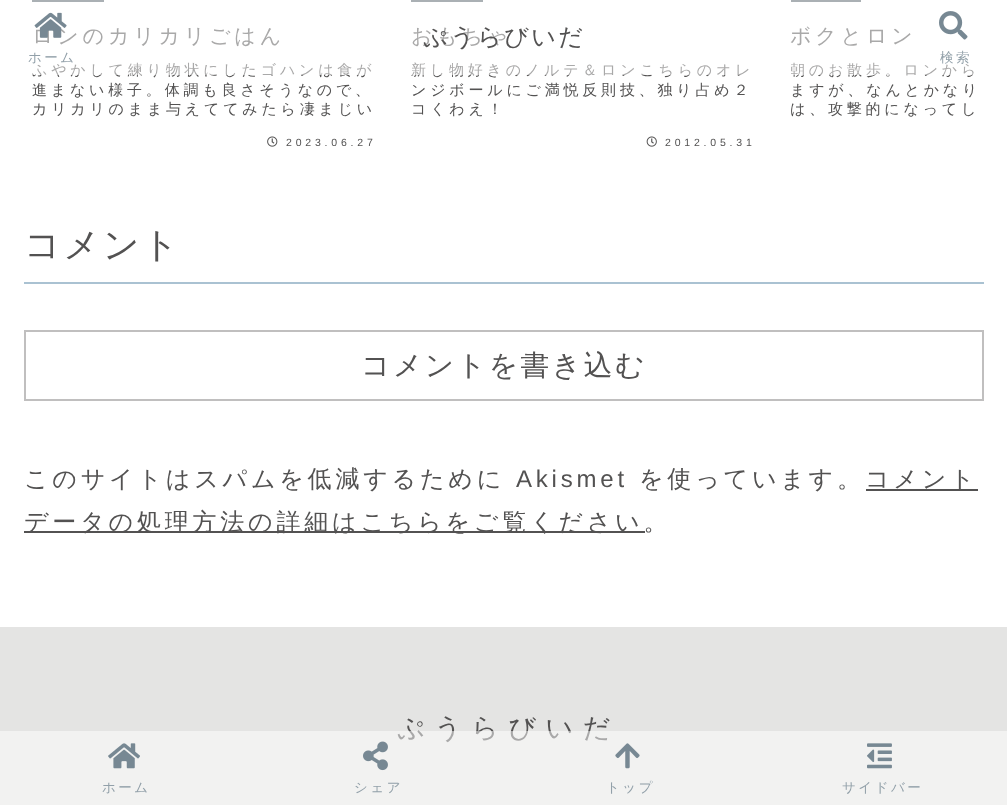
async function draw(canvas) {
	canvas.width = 1007;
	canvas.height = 805;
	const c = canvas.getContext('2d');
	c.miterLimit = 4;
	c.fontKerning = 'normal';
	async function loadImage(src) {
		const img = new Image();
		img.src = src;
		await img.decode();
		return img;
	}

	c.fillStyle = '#fff';
	c.fillRect(0, 0, 1007, 805);
	c.fillStyle = '#556169';
	c.fillRect(32, 0, 72, 2);
	c.letterSpacing = '3.8px';
	c.font = '500 21px WenQuanYi Zen Hei';
	c.fillStyle = '#535252';
	c.fillText('ロンのカリカリごはん', 32, 43);
	c.font = '500 15px WenQuanYi Zen Hei';
	for (const [text, x, y] of [
		['ふやかして練り物状にしたゴハンは食が', 32, 75],
		['進まない様子。体調も良さそうなので、', 32, 95],
		['カリカリのまま与えててみたら凄まじい', 32, 114],
	]) {
		c.fillText(text, x, y);
	}
	c.drawImage(await loadImage('img1.png'), 267, 136, 11, 11);
	c.font = '10.5px Liberation Sans';
	c.fillText('2023.06.27', 286, 146);
	c.fillStyle = '#556169';
	c.fillRect(411, 0, 72, 2);
	c.font = '500 21px WenQuanYi Zen Hei';
	c.fillStyle = '#535252';
	c.fillText('おもちゃ', 411, 43);
	c.font = '500 15px WenQuanYi Zen Hei';
	for (const [text, x, y] of [
		['新し物好きのノルテ＆ロンこちらのオレ', 411, 75],
		['ンジボールにご満悦反則技、独り占め２', 411, 95],
		['コくわえ！', 411, 114],
	]) {
		c.fillText(text, x, y);
	}
	c.drawImage(await loadImage('img2.png'), 646, 136, 11, 11);
	c.font = '10.5px Liberation Sans';
	c.fillText('2012.05.31', 665, 146);
	c.fillStyle = '#556169';
	c.fillRect(791, 0, 70, 2);
	c.font = '500 21px WenQuanYi Zen Hei';
	c.fillStyle = '#535252';
	c.fillText('ボクとロン', 790, 43);
	c.save();
	c.beginPath();
	c.rect(791, 60, 193, 59);
	c.clip();
	c.font = '500 15px WenQuanYi Zen Hei';
	c.fillText('朝のお散歩。ロンから', 790, 75);
	c.restore();
	c.font = '500 15px WenQuanYi Zen Hei';
	c.fillText('ますが、なんとかなり', 790, 95);
	c.fillText('は、攻撃的になってし', 790, 114);
	c.fillStyle = '#aac2d2';
	c.fillRect(24, 282, 960, 2);
	c.letterSpacing = '2.5px';
	c.font = '500 36px WenQuanYi Zen Hei';
	c.fillStyle = '#535252';
	c.fillText('コメント', 24, 257);
	c.strokeStyle = '#c0bfbf';
	c.lineWidth = 2;
	c.strokeRect(25, 331, 958, 69);
	c.font = '500 28.75px WenQuanYi Zen Hei';
	c.fillText('コメントを書き込む', 361, 375);
	c.letterSpacing = '3.8px';
	c.font = '500 24px WenQuanYi Zen Hei';
	c.fillText('このサイトはスパムを低減するために', 24, 487);
	c.font = '24px Liberation Sans';
	c.fillText('Akismet', 516, 487);
	c.font = '500 24px WenQuanYi Zen Hei';
	c.fillText('を使っています。', 639, 487);
	c.fillRect(866, 489, 112, 2);
	c.fillText('コメント', 865, 487);
	c.fillRect(24, 531, 621, 2);
	c.fillText('データの処理方法の詳細はこちらをご覧ください。', 24, 530);
	c.fillStyle = '#ffffff80';
	c.fillRect(31, 0, 943, 75);
	c.letterSpacing = '2.5px';
	c.fillStyle = '#535252';
	c.fillText('ぷうらびいだ', 423, 45);
	c.drawImage(await loadImage('img3.png'), 34, 12, 33, 26);
	c.font = '500 13.5px WenQuanYi Zen Hei';
	c.fillStyle = '#92a0a9';
	c.fillText('ホーム', 28, 62);
	c.drawImage(await loadImage('img4.png'), 939, 11, 29, 29);
	c.fillText('検索', 940, 62);
	c.fillStyle = '#e4e4e3';
	c.fillRect(0, 627, 1007, 178);
	c.letterSpacing = '9.5px';
	c.font = '500 27px WenQuanYi Zen Hei';
	c.fillStyle = '#535252';
	c.fillText('ぷうらびいだ', 397, 737);
	c.fillStyle = '#ffffff80';
	c.fillRect(0, 731, 1007, 74);
	c.drawImage(await loadImage('img5.png'), 108, 743, 32, 26);
	c.letterSpacing = '2.5px';
	c.font = '500 13.5px WenQuanYi Zen Hei';
	c.fillStyle = '#92a0a9';
	c.fillText('ホーム', 102, 792);
	c.drawImage(await loadImage('img6.png'), 363, 741, 25, 30);
	c.fillText('シェア', 354, 792);
	c.drawImage(await loadImage('img7.png'), 615, 743, 25, 26);
	c.fillText('トップ', 606, 792);
	c.drawImage(await loadImage('img8.png'), 867, 743, 25, 26);
	c.fillText('サイドバー', 842, 792);
}

draw(document.querySelector('canvas'));
